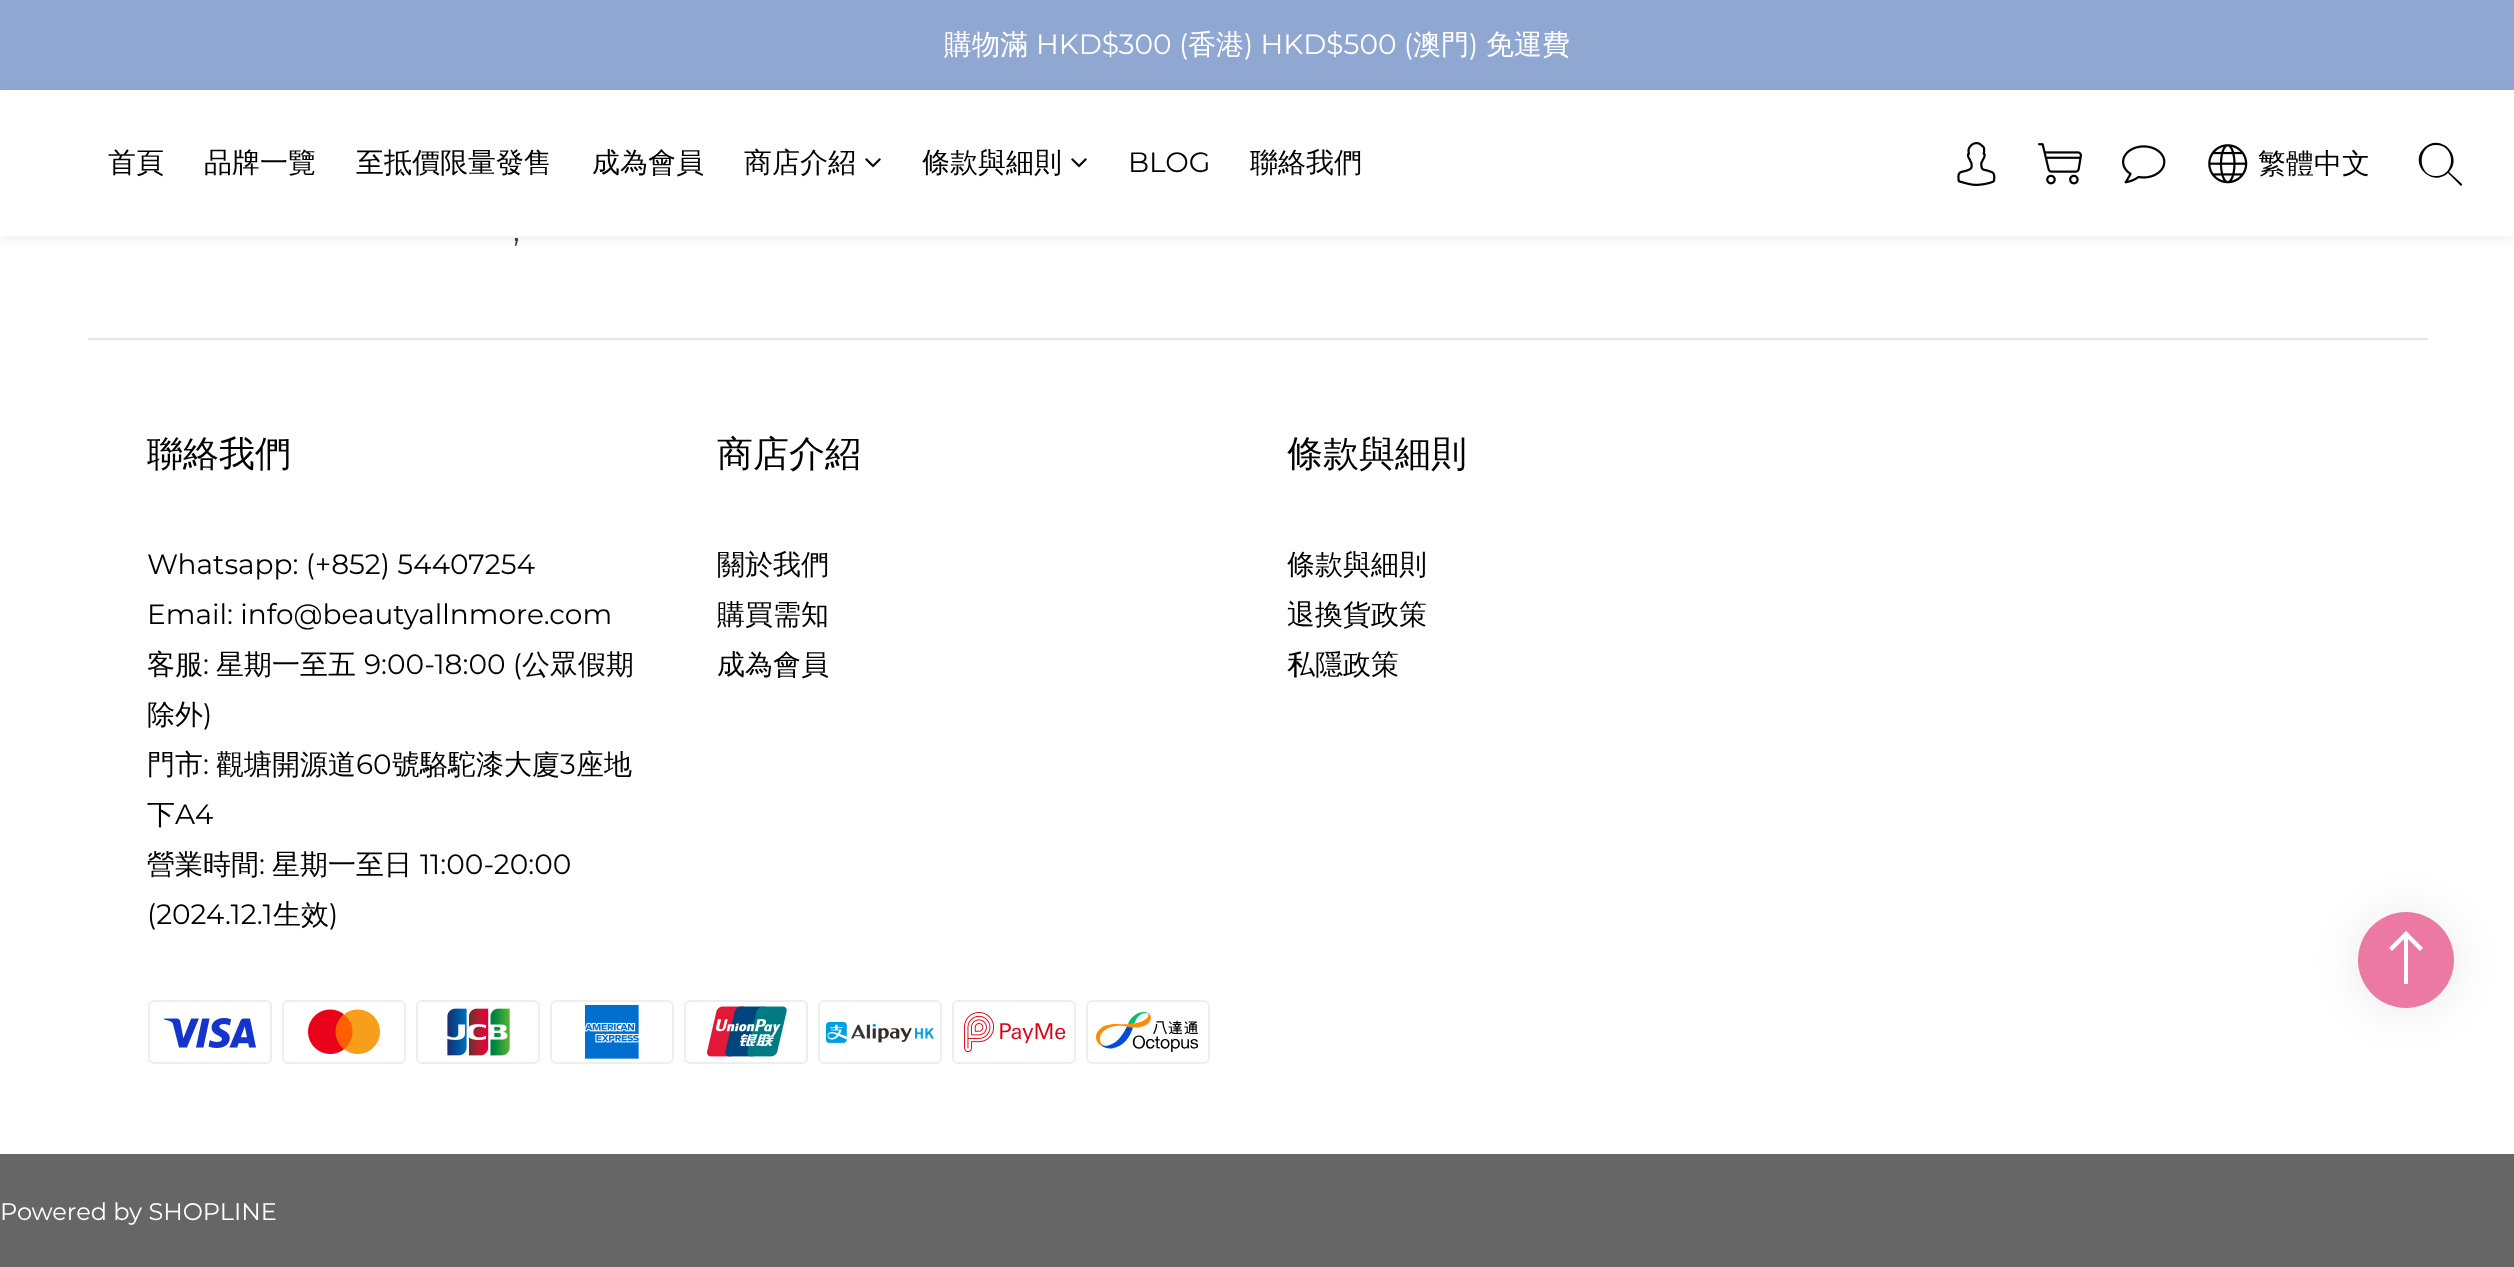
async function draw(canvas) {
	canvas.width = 2514;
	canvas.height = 1267;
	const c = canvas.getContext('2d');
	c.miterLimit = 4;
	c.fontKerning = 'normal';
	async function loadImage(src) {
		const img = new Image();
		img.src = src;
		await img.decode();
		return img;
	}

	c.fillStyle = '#fff';
	c.fillRect(0, 0, 2514, 1267);
	c.fillStyle = '#90a7d1';
	c.fillRect(0, 0, 2514, 90);
	c.font = '500 28px WenQuanYi Zen Hei';
	c.fillStyle = '#fff';
	c.fillText('購物滿', 944, 54);
	c.font = '28px Montserrat';
	c.fillText('HKD$300 (', 1036, 54);
	c.font = '500 28px WenQuanYi Zen Hei';
	c.fillText('香港', 1188, 54);
	c.font = '28px Montserrat';
	c.fillText(') HKD$500 (', 1244, 54);
	c.font = '500 28px WenQuanYi Zen Hei';
	c.fillText('澳門', 1413, 54);
	c.font = '28px Montserrat';
	c.fillText(')', 1469, 54);
	c.font = '500 28px WenQuanYi Zen Hei';
	c.fillText('免運費', 1486, 54);
	c.fillStyle = '#0000000f';
	c.filter = 'blur(6px)';
	c.beginPath();
	c.rect(0, 94, 2514, 146);
	c.fill();
	c.filter = 'none';
	c.fillStyle = '#fff';
	c.fillRect(0, 90, 2514, 146);
	c.fillStyle = '#000';
	for (const [text, x, y] of [
		['首頁', 108, 172],
		['品牌一覽', 204, 172],
		['至抵價限量發售', 356, 172],
		['成為會員', 592, 172],
		['商店介紹', 744, 172],
	]) {
		c.fillText(text, x, y);
	}
	c.drawImage(await loadImage('img1.png'), 865, 158, 16, 10);
	c.fillText('條款與細則', 922, 172);
	c.drawImage(await loadImage('img1.png'), 1071, 158, 16, 10);
	c.font = '28px Montserrat';
	c.fillText('BLOG', 1128, 172);
	c.font = '500 28px WenQuanYi Zen Hei';
	c.fillText('聯絡我們', 1250, 172);
	c.drawImage(await loadImage('img2.png'), 1957, 142, 39, 44);
	c.drawImage(await loadImage('img3.png'), 2038, 143, 44, 42);
	c.drawImage(await loadImage('img4.png'), 2122, 145, 44, 39);
	c.drawImage(await loadImage('img5.png'), 2208, 144, 40, 40);
	c.fillText('繁體中文', 2258, 173);
	c.beginPath();
	c.moveTo(2436, 176);
	c.bezierCurveTo(2417, 176, 2417, 145, 2436, 145);
	c.bezierCurveTo(2456, 145, 2456, 176, 2436, 176);
	c.moveTo(2462, 184);
	c.lineTo(2449, 172);
	c.bezierCurveTo(2464, 156, 2440, 132, 2424, 148);
	c.bezierCurveTo(2408, 164, 2432, 188, 2448, 173);
	c.lineTo(2461, 186);
	c.bezierCurveTo(2461, 186, 2462, 185, 2462, 185);
	c.lineTo(2462, 184);
	c.fill('evenodd');
	c.font = '32px Montserrat';
	c.fillStyle = '#3e3a39';
	c.fillText(',', 513, 241);
	c.fillStyle = '#e6e6e6';
	c.fillRect(88, 338, 2340, 2);
	c.font = '500 36px WenQuanYi Zen Hei';
	c.fillStyle = '#000';
	c.fillText('聯絡我們', 147, 466);
	c.font = '28px Montserrat';
	c.fillText('Whatsapp: (+852) 54407254', 147, 574);
	c.fillText('Email: info@beautyallnmore.com', 147, 624);
	c.font = '500 28px WenQuanYi Zen Hei';
	c.fillText('客服', 147, 674);
	c.font = '28px Montserrat';
	c.fillText(':', 203, 674);
	c.font = '500 28px WenQuanYi Zen Hei';
	c.fillText('星期一至五', 216, 674);
	c.font = '28px Montserrat';
	c.fillText('9:00-18:00 (', 364, 674);
	c.font = '500 28px WenQuanYi Zen Hei';
	c.fillText('公眾假期', 522, 674);
	c.fillText('除外', 147, 724);
	c.font = '28px Montserrat';
	c.fillText(')', 203, 724);
	c.font = '500 28px WenQuanYi Zen Hei';
	c.fillText('門市', 147, 774);
	c.font = '28px Montserrat';
	c.fillText(':', 203, 774);
	c.font = '500 28px WenQuanYi Zen Hei';
	c.fillText('觀塘開源道', 216, 774);
	c.font = '28px Montserrat';
	c.fillText('60', 356, 774);
	c.font = '500 28px WenQuanYi Zen Hei';
	c.fillText('號駱駝漆大廈', 392, 774);
	c.font = '28px Montserrat';
	c.fillText('3', 560, 774);
	c.font = '500 28px WenQuanYi Zen Hei';
	c.fillText('座地', 576, 774);
	c.fillText('下', 147, 824);
	c.font = '28px Montserrat';
	c.fillText('A4', 175, 824);
	c.font = '500 28px WenQuanYi Zen Hei';
	c.fillText('營業時間', 147, 874);
	c.font = '28px Montserrat';
	c.fillText(':', 259, 874);
	c.font = '500 28px WenQuanYi Zen Hei';
	c.fillText('星期一至日', 272, 874);
	c.font = '28px Montserrat';
	c.fillText('11:00-20:00', 420, 874);
	c.fillText('(2024.12.1', 147, 924);
	c.font = '500 28px WenQuanYi Zen Hei';
	c.fillText('生效', 273, 924);
	c.font = '28px Montserrat';
	c.fillText(')', 329, 924);
	c.font = '500 36px WenQuanYi Zen Hei';
	c.fillText('商店介紹', 717, 466);
	c.font = '500 28px WenQuanYi Zen Hei';
	for (const [text, x, y] of [
		['關於我們', 717, 574],
		['購買需知', 717, 624],
		['成為會員', 717, 674],
	]) {
		c.fillText(text, x, y);
	}
	c.font = '500 36px WenQuanYi Zen Hei';
	c.fillText('條款與細則', 1287, 466);
	c.font = '500 28px WenQuanYi Zen Hei';
	for (const [text, x, y] of [
		['條款與細則', 1287, 574],
		['退換貨政策', 1287, 624],
		['私隱政策', 1287, 674],
	]) {
		c.fillText(text, x, y);
	}
	c.drawImage(await loadImage('img6.png'), 148, 1000, 124, 64);
	c.drawImage(await loadImage('img7.png'), 282, 1000, 124, 64);
	c.drawImage(await loadImage('img8.png'), 416, 1000, 124, 64);
	c.drawImage(await loadImage('img9.png'), 550, 1000, 124, 64);
	c.drawImage(await loadImage('img10.png'), 684, 1000, 124, 64);
	c.drawImage(await loadImage('img11.png'), 818, 1000, 124, 64);
	c.drawImage(await loadImage('img12.png'), 952, 1000, 124, 64);
	c.drawImage(await loadImage('img13.png'), 1086, 1000, 124, 64);
	c.fillStyle = '#666';
	c.fillRect(0, 1154, 2514, 113);
	c.font = '24px Montserrat';
	c.fillStyle = '#fff';
	c.fillText('Powered by SHOPLINE', 0, 1220);
	c.fillStyle = '#00000017';
	c.filter = 'blur(24px)';
	c.beginPath();
	c.roundRect(2358, 914, 96, 96, 48);
	c.fill();
	c.filter = 'none';
	c.fillStyle = '#ec79a2';
	c.beginPath();
	c.arc(2406, 960, 48, 0, 2 * Math.PI);
	c.fill();
	c.fillStyle = '#fff';
	c.beginPath();
	c.moveTo(2406, 931);
	c.lineTo(2423, 948);
	c.lineTo(2420, 951);
	c.lineTo(2403, 934);
	c.closePath();
	c.fill();
	c.beginPath();
	c.moveTo(2406, 931);
	c.lineTo(2409, 934);
	c.lineTo(2392, 951);
	c.lineTo(2389, 948);
	c.closePath();
	c.fill();
	c.fillRect(2404, 936, 4, 48);
}

draw(document.querySelector('canvas'));
